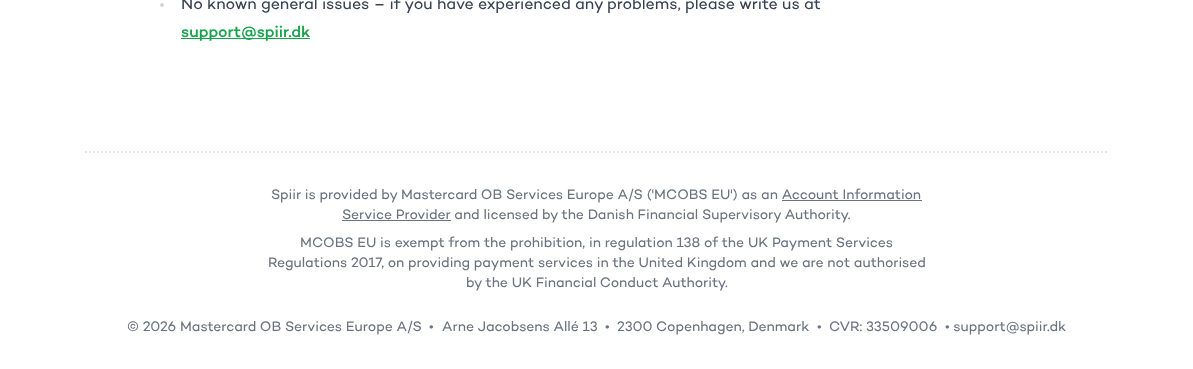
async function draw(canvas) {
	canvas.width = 1193;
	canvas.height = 369;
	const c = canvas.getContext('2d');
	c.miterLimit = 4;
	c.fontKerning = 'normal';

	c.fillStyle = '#fff';
	c.fillRect(0, 0, 1193, 369);
	c.fillStyle = '#d1d5db';
	c.beginPath();
	c.arc(162, 5, 2, 0, 2 * Math.PI);
	c.fill();
	c.font = '16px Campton';
	c.fillStyle = '#374151';
	c.fillText('No known general issues – if you have experienced any problems, please write us at', 181, 9);
	c.fillStyle = '#16a34a';
	c.fillRect(181, 38, 129, 1);
	c.font = '500 16px Campton';
	c.fillText('support@spiir.dk', 181, 37);
	c.beginPath();
	c.moveTo(85, 152);
	c.lineTo(1109, 152);
	c.strokeStyle = '#e5e7eb';
	c.lineWidth = 2;
	c.setLineDash([2, 2]);
	c.stroke();
	c.font = '14px Campton';
	c.fillStyle = '#6b7280';
	c.fillText('Spiir is provided by Mastercard OB Services Europe A/S (\'MCOBS EU\') as an Account Information', 271, 199);
	c.fillRect(342, 220, 109, 1);
	c.fillText('Service Provider and licensed by the Danish Financial Supervisory Authority.', 342, 219);
	c.fillRect(782, 200, 140, 1);
	for (const [text, x, y] of [
		['MCOBS EU is exempt from the prohibition, in regulation 138 of the UK Payment Services', 300, 247],
		['Regulations 2017, on providing payment services in the United Kingdom and we are not authorised', 268, 267],
		['by the UK Financial Conduct Authority.', 466, 287],
		['© 2026 Mastercard OB Services Europe A/S', 127, 331],
		['•', 429, 331],
		['Arne Jacobsens Allé 13', 442, 331],
		['•', 605, 331],
		['2300 Copenhagen, Denmark', 617, 331],
		['•', 817, 331],
		['CVR: 33509006', 829, 331],
		['• support@spiir.dk', 945, 331],
	]) {
		c.fillText(text, x, y);
	}
}

draw(document.querySelector('canvas'));
